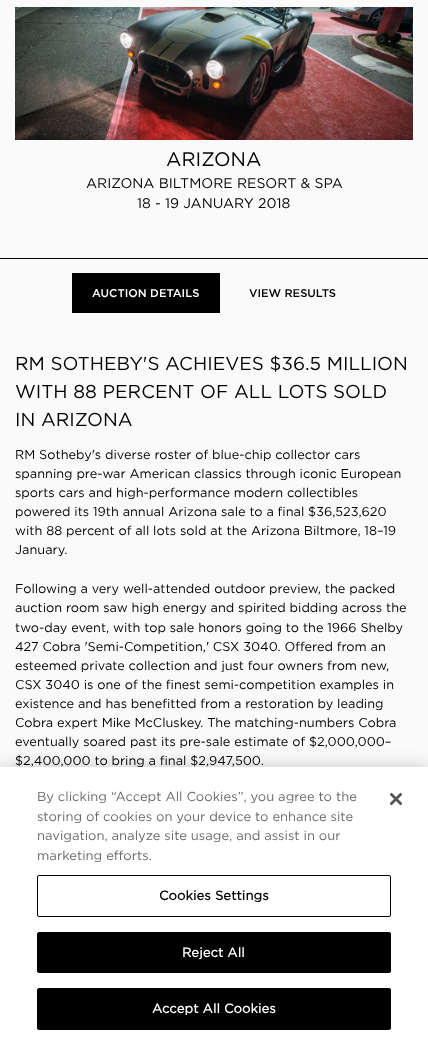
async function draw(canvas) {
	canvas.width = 428;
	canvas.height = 1045;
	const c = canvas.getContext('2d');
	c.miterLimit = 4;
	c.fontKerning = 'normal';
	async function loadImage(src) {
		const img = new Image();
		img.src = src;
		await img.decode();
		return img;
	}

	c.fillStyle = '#fafafa';
	c.fillRect(0, 0, 428, 1045);
	c.drawImage(await loadImage('img1.png'), 15, 7, 398, 133);
	c.font = '19.5px Gotham';
	c.fillStyle = '#000';
	c.fillText('ARIZONA', 166, 166);
	c.font = '14px Gotham';
	c.fillText('ARIZONA BILTMORE RESORT & SPA', 86, 188);
	c.fillText('18 - 19 JANUARY 2018', 137, 208);
	for (const [x, y, w, h, color] of [
		[0, 258, 428, 1, '#000'],
		[0, 259, 428, 1, '#fff'],
		[72, 273, 148, 40, '#000'],
	]) {
		c.fillStyle = color;
		c.fillRect(x, y, w, h);
	}
	c.font = '500 11.25px Gotham';
	c.fillStyle = '#fff';
	c.fillText('AUCTION DETAILS', 92, 297);
	c.fillStyle = '#000';
	c.fillText('VIEW RESULTS', 249, 297);
	c.font = '18.75px Gotham';
	for (const [text, x, y] of [
		['RM SOTHEBY\'S ACHIEVES $36.5 MILLION', 15, 370],
		['WITH 88 PERCENT OF ALL LOTS SOLD', 15, 398],
		['IN ARIZONA', 15, 426],
	]) {
		c.fillText(text, x, y);
	}
	c.font = '12.75px Gotham';
	for (const [text, x, y] of [
		['RM Sotheby\'s diverse roster of blue-chip collector cars', 15, 459],
		['spanning pre-war American classics through iconic European', 15, 478],
		['sports cars and high-performance modern collectibles', 15, 497],
		['powered its 19th annual Arizona sale to a final $36,523,620', 15, 516],
		['with 88 percent of all lots sold at the Arizona Biltmore, 18–19', 15, 535],
		['January.', 15, 554],
		['Following a very well-attended outdoor preview, the packed', 15, 593],
		['auction room saw high energy and spirited bidding across the', 15, 612],
		['two-day event, with top sale honors going to the 1966 Shelby', 15, 632],
		['427 Cobra \'Semi-Competition,\' CSX 3040. Offered from an', 15, 651],
		['esteemed private collection and just four owners from new,', 15, 670],
		['CSX 3040 is one of the finest semi-competition examples in', 15, 689],
		['existence and has benefitted from a restoration by leading', 15, 708],
		['Cobra expert Mike McCluskey. The matching-numbers Cobra', 15, 727],
		['eventually soared past its pre-sale estimate of $2,000,000–', 15, 746],
		['$2,400,000 to bring a final $2,947,500.', 15, 765],
	]) {
		c.fillText(text, x, y);
	}
	c.fillStyle = '#00000033';
	c.filter = 'blur(9px)';
	c.beginPath();
	c.rect(0, 767, 428, 278);
	c.fill();
	c.filter = 'none';
	c.fillStyle = '#fff';
	c.fillRect(0, 767, 428, 278);
	c.font = '13px Gotham';
	c.fillStyle = '#696969';
	for (const [text, x, y] of [
		['By clicking “Accept All Cookies”, you agree to the', 37, 801],
		['storing of cookies on your device to enhance site', 37, 821],
		['navigation, analyze site usage, and assist in our', 37, 840],
		['marketing efforts.', 37, 860],
	]) {
		c.fillText(text, x, y);
	}
	c.beginPath();
	c.roundRect(37.5, 875.5, 353, 41, 1.5);
	c.strokeStyle = '#000';
	c.stroke();
	c.letterSpacing = '0.1px';
	c.font = 'bold 13px Gotham';
	c.fillStyle = '#000';
	c.fillText('Cookies Settings', 159, 900);
	c.beginPath();
	c.roundRect(37.5, 932.5, 353, 40, 1.5);
	c.fill();
	c.stroke();
	c.fillStyle = '#fff';
	c.fillText('Reject All', 182, 957);
	c.fillStyle = '#000';
	c.beginPath();
	c.roundRect(37.5, 988.5, 353, 41, 1.5);
	c.fill();
	c.stroke();
	c.fillStyle = '#fff';
	c.fillText('Accept All Cookies', 152, 1013);
	c.drawImage(await loadImage('img2.png'), 390, 793, 12, 12);
}

draw(document.querySelector('canvas'));
